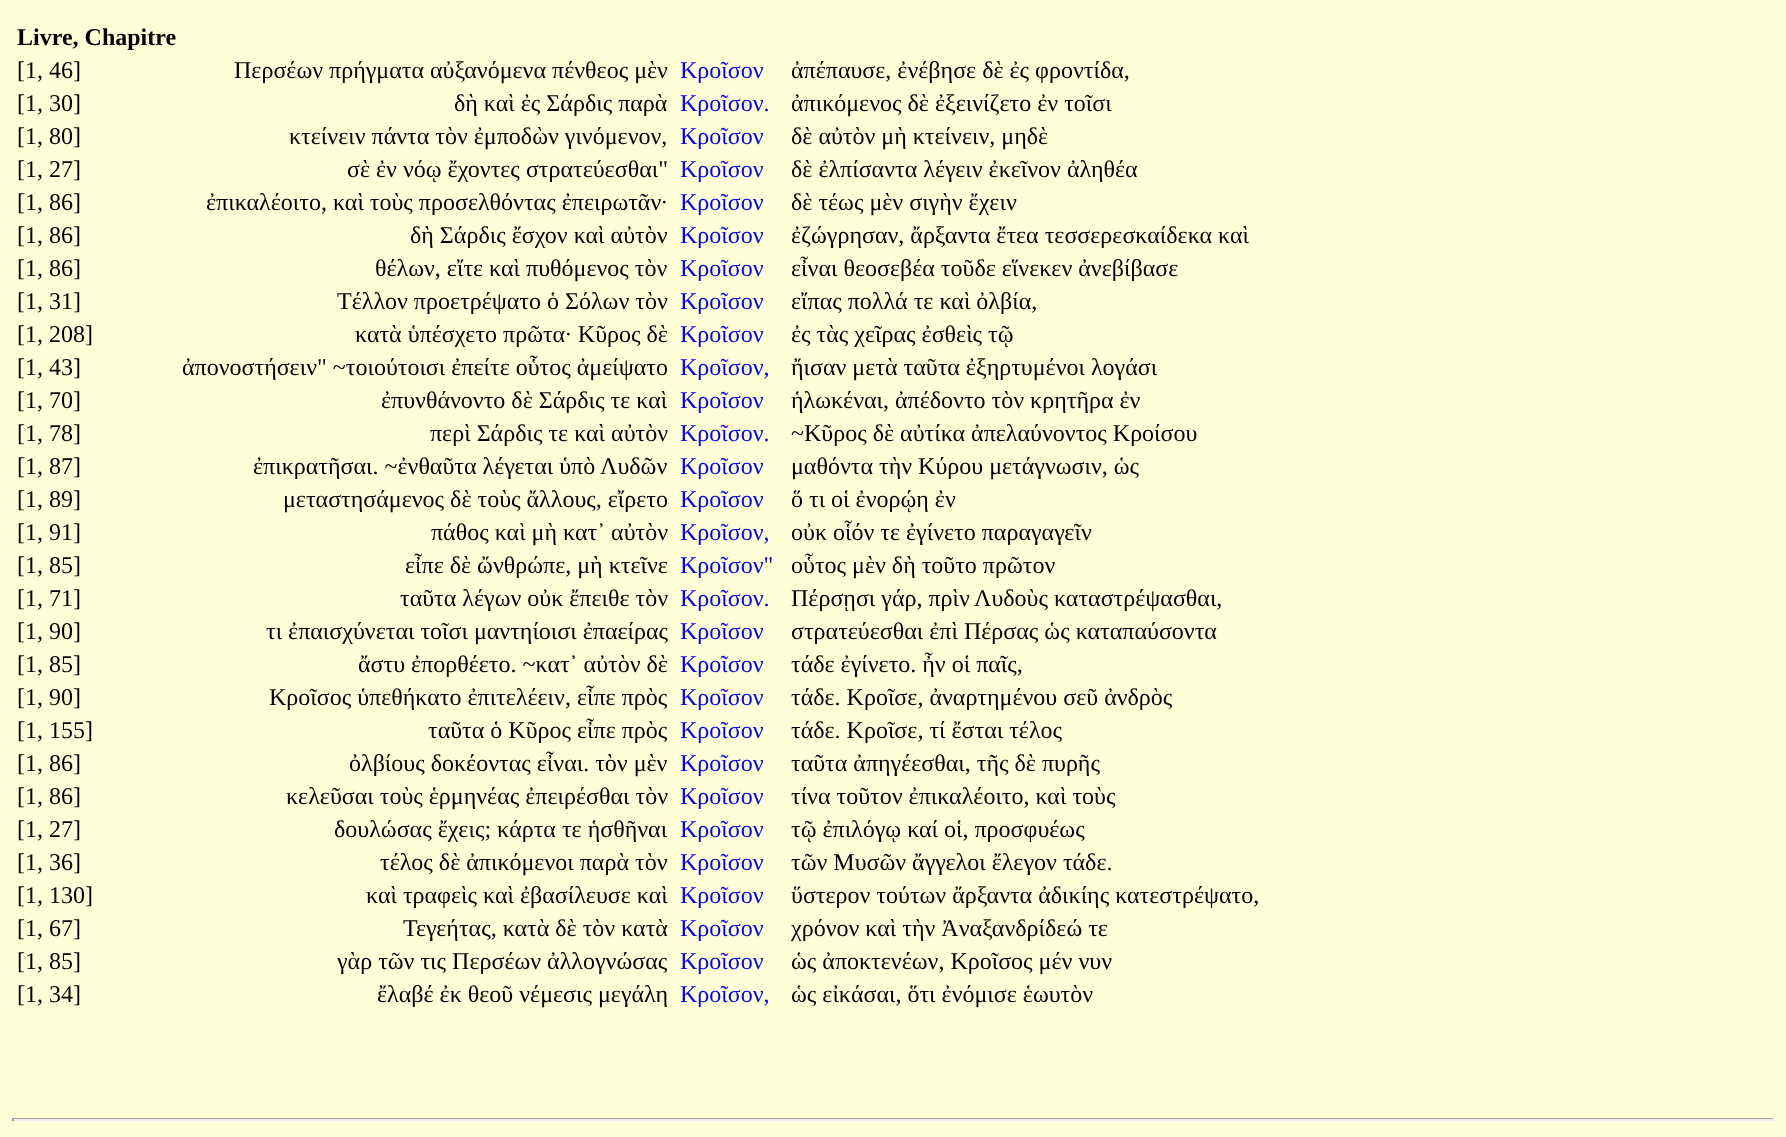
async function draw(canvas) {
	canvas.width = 1786;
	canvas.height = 1137;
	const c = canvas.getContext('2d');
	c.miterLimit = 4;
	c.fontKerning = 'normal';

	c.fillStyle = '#ffffd7';
	c.fillRect(0, 0, 1786, 1137);
	c.font = 'bold 24px Liberation Serif';
	c.fillStyle = '#000';
	c.fillText('Livre, Chapitre', 17, 45);
	c.font = '24px Liberation Serif';
	c.fillText('[1, 46]', 17, 78);
	c.fillText('Περσέων πρήγματα αὐξανόμενα πένθεος μὲν', 234, 78);
	c.fillStyle = '#00f';
	c.fillText('Κροῖσον', 680, 78);
	c.fillStyle = '#000';
	for (const [text, x, y] of [
		['ἀπέπαυσε, ἐνέβησε δὲ ἐς φροντίδα,', 791, 78],
		['[1, 30]', 17, 111],
		['δὴ καὶ ἐς Σάρδις παρὰ', 454, 111],
	]) {
		c.fillText(text, x, y);
	}
	c.fillStyle = '#00f';
	c.fillText('Κροῖσον.', 680, 111);
	c.fillStyle = '#000';
	for (const [text, x, y] of [
		['ἀπικόμενος δὲ ἐξεινίζετο ἐν τοῖσι', 791, 111],
		['[1, 80]', 17, 144],
		['κτείνειν πάντα τὸν ἐμποδὼν γινόμενον,', 289, 144],
	]) {
		c.fillText(text, x, y);
	}
	c.fillStyle = '#00f';
	c.fillText('Κροῖσον', 680, 144);
	c.fillStyle = '#000';
	for (const [text, x, y] of [
		['δὲ αὐτὸν μὴ κτείνειν, μηδὲ', 791, 144],
		['[1, 27]', 17, 177],
		['σὲ ἐν νόῳ ἔχοντες στρατεύεσθαι"', 347, 177],
	]) {
		c.fillText(text, x, y);
	}
	c.fillStyle = '#00f';
	c.fillText('Κροῖσον', 680, 177);
	c.fillStyle = '#000';
	for (const [text, x, y] of [
		['δὲ ἐλπίσαντα λέγειν ἐκεῖνον ἀληθέα', 791, 177],
		['[1, 86]', 17, 210],
		['ἐπικαλέοιτο, καὶ τοὺς προσελθόντας ἐπειρωτᾶν·', 206, 210],
	]) {
		c.fillText(text, x, y);
	}
	c.fillStyle = '#00f';
	c.fillText('Κροῖσον', 680, 210);
	c.fillStyle = '#000';
	for (const [text, x, y] of [
		['δὲ τέως μὲν σιγὴν ἔχειν', 791, 210],
		['[1, 86]', 17, 243],
		['δὴ Σάρδις ἔσχον καὶ αὐτὸν', 410, 243],
	]) {
		c.fillText(text, x, y);
	}
	c.fillStyle = '#00f';
	c.fillText('Κροῖσον', 680, 243);
	c.fillStyle = '#000';
	for (const [text, x, y] of [
		['ἐζώγρησαν, ἄρξαντα ἔτεα τεσσερεσκαίδεκα καὶ', 791, 243],
		['[1, 86]', 17, 276],
		['θέλων, εἴτε καὶ πυθόμενος τὸν', 375, 276],
	]) {
		c.fillText(text, x, y);
	}
	c.fillStyle = '#00f';
	c.fillText('Κροῖσον', 680, 276);
	c.fillStyle = '#000';
	for (const [text, x, y] of [
		['εἶναι θεοσεβέα τοῦδε εἵνεκεν ἀνεβίβασε', 791, 276],
		['[1, 31]', 17, 309],
		['Τέλλον προετρέψατο ὁ Σόλων τὸν', 337, 309],
	]) {
		c.fillText(text, x, y);
	}
	c.fillStyle = '#00f';
	c.fillText('Κροῖσον', 680, 309);
	c.fillStyle = '#000';
	for (const [text, x, y] of [
		['εἴπας πολλά τε καὶ ὀλβία,', 791, 309],
		['[1, 208]', 17, 342],
		['κατὰ ὑπέσχετο πρῶτα· Κῦρος δὲ', 355, 342],
	]) {
		c.fillText(text, x, y);
	}
	c.fillStyle = '#00f';
	c.fillText('Κροῖσον', 680, 342);
	c.fillStyle = '#000';
	for (const [text, x, y] of [
		['ἐς τὰς χεῖρας ἐσθεὶς τῷ', 791, 342],
		['[1, 43]', 17, 375],
		['ἀπονοστήσειν" ~τοιούτοισι ἐπείτε οὗτος ἀμείψατο', 182, 375],
	]) {
		c.fillText(text, x, y);
	}
	c.fillStyle = '#00f';
	c.fillText('Κροῖσον,', 680, 375);
	c.fillStyle = '#000';
	for (const [text, x, y] of [
		['ἤισαν μετὰ ταῦτα ἐξηρτυμένοι λογάσι', 791, 375],
		['[1, 70]', 17, 408],
		['ἐπυνθάνοντο δὲ Σάρδις τε καὶ', 381, 408],
	]) {
		c.fillText(text, x, y);
	}
	c.fillStyle = '#00f';
	c.fillText('Κροῖσον', 680, 408);
	c.fillStyle = '#000';
	for (const [text, x, y] of [
		['ἡλωκέναι, ἀπέδοντο τὸν κρητῆρα ἐν', 791, 408],
		['[1, 78]', 17, 441],
		['περὶ Σάρδις τε καὶ αὐτὸν', 430, 441],
	]) {
		c.fillText(text, x, y);
	}
	c.fillStyle = '#00f';
	c.fillText('Κροῖσον.', 680, 441);
	c.fillStyle = '#000';
	for (const [text, x, y] of [
		['~Κῦρος δὲ αὐτίκα ἀπελαύνοντος Κροίσου', 791, 441],
		['[1, 87]', 17, 474],
		['ἐπικρατῆσαι. ~ἐνθαῦτα λέγεται ὑπὸ', 253, 474],
		['Λυδῶν', 600, 474],
	]) {
		c.fillText(text, x, y);
	}
	c.fillStyle = '#00f';
	c.fillText('Κροῖσον', 680, 474);
	c.fillStyle = '#000';
	for (const [text, x, y] of [
		['μαθόντα τὴν Κύρου μετάγνωσιν, ὡς', 791, 474],
		['[1, 89]', 17, 507],
		['μεταστησάμενος δὲ τοὺς ἄλλους, εἴρετο', 283, 507],
	]) {
		c.fillText(text, x, y);
	}
	c.fillStyle = '#00f';
	c.fillText('Κροῖσον', 680, 507);
	c.fillStyle = '#000';
	for (const [text, x, y] of [
		['ὅ τι οἱ ἐνορῴη ἐν', 791, 507],
		['[1, 91]', 17, 540],
		['πάθος καὶ μὴ κατ᾽ αὐτὸν', 431, 540],
	]) {
		c.fillText(text, x, y);
	}
	c.fillStyle = '#00f';
	c.fillText('Κροῖσον,', 680, 540);
	c.fillStyle = '#000';
	for (const [text, x, y] of [
		['οὐκ οἷόν τε ἐγίνετο παραγαγεῖν', 791, 540],
		['[1, 85]', 17, 573],
		['εἶπε δὲ ὤνθρώπε, μὴ κτεῖνε', 405, 573],
	]) {
		c.fillText(text, x, y);
	}
	c.fillStyle = '#00f';
	c.fillText('Κροῖσον"', 680, 573);
	c.fillStyle = '#000';
	for (const [text, x, y] of [
		['οὗτος μὲν δὴ τοῦτο πρῶτον', 791, 573],
		['[1, 71]', 17, 606],
		['ταῦτα λέγων οὐκ ἔπειθε τὸν', 400, 606],
	]) {
		c.fillText(text, x, y);
	}
	c.fillStyle = '#00f';
	c.fillText('Κροῖσον.', 680, 606);
	c.fillStyle = '#000';
	for (const [text, x, y] of [
		['Πέρσῃσι γάρ, πρὶν', 791, 606],
		['Λυδοὺς καταστρέψασθαι,', 974, 606],
		['[1, 90]', 17, 639],
		['τι ἐπαισχύνεται τοῖσι μαντηίοισι ἐπαείρας', 266, 639],
	]) {
		c.fillText(text, x, y);
	}
	c.fillStyle = '#00f';
	c.fillText('Κροῖσον', 680, 639);
	c.fillStyle = '#000';
	for (const [text, x, y] of [
		['στρατεύεσθαι ἐπὶ Πέρσας ὡς καταπαύσοντα', 791, 639],
		['[1, 85]', 17, 672],
		['ἄστυ ἐπορθέετο. ~κατ᾽ αὐτὸν δὲ', 358, 672],
	]) {
		c.fillText(text, x, y);
	}
	c.fillStyle = '#00f';
	c.fillText('Κροῖσον', 680, 672);
	c.fillStyle = '#000';
	for (const [text, x, y] of [
		['τάδε ἐγίνετο. ἦν οἱ παῖς,', 791, 672],
		['[1, 90]', 17, 705],
		['Κροῖσος ὑπεθήκατο ἐπιτελέειν, εἶπε πρὸς', 269, 705],
	]) {
		c.fillText(text, x, y);
	}
	c.fillStyle = '#00f';
	c.fillText('Κροῖσον', 680, 705);
	c.fillStyle = '#000';
	for (const [text, x, y] of [
		['τάδε. Κροῖσε, ἀναρτημένου σεῦ ἀνδρὸς', 791, 705],
		['[1, 155]', 17, 738],
		['ταῦτα ὁ Κῦρος εἶπε πρὸς', 428, 738],
	]) {
		c.fillText(text, x, y);
	}
	c.fillStyle = '#00f';
	c.fillText('Κροῖσον', 680, 738);
	c.fillStyle = '#000';
	for (const [text, x, y] of [
		['τάδε. Κροῖσε, τί ἔσται τέλος', 791, 738],
		['[1, 86]', 17, 771],
		['ὀλβίους δοκέοντας εἶναι. τὸν μὲν', 349, 771],
	]) {
		c.fillText(text, x, y);
	}
	c.fillStyle = '#00f';
	c.fillText('Κροῖσον', 680, 771);
	c.fillStyle = '#000';
	for (const [text, x, y] of [
		['ταῦτα ἀπηγέεσθαι, τῆς δὲ πυρῆς', 791, 771],
		['[1, 86]', 17, 804],
		['κελεῦσαι τοὺς ἑρμηνέας ἐπειρέσθαι τὸν', 286, 804],
	]) {
		c.fillText(text, x, y);
	}
	c.fillStyle = '#00f';
	c.fillText('Κροῖσον', 680, 804);
	c.fillStyle = '#000';
	for (const [text, x, y] of [
		['τίνα τοῦτον ἐπικαλέοιτο, καὶ τοὺς', 791, 804],
		['[1, 27]', 17, 837],
		['δουλώσας ἔχεις; κάρτα τε ἡσθῆναι', 334, 837],
	]) {
		c.fillText(text, x, y);
	}
	c.fillStyle = '#00f';
	c.fillText('Κροῖσον', 680, 837);
	c.fillStyle = '#000';
	for (const [text, x, y] of [
		['τῷ ἐπιλόγῳ καί οἱ, προσφυέως', 791, 837],
		['[1, 36]', 17, 870],
		['τέλος δὲ ἀπικόμενοι παρὰ τὸν', 380, 870],
	]) {
		c.fillText(text, x, y);
	}
	c.fillStyle = '#00f';
	c.fillText('Κροῖσον', 680, 870);
	c.fillStyle = '#000';
	for (const [text, x, y] of [
		['τῶν Μυσῶν ἄγγελοι ἔλεγον τάδε.', 791, 870],
		['[1, 130]', 17, 903],
		['καὶ τραφεὶς καὶ ἐβασίλευσε καὶ', 366, 903],
	]) {
		c.fillText(text, x, y);
	}
	c.fillStyle = '#00f';
	c.fillText('Κροῖσον', 680, 903);
	c.fillStyle = '#000';
	for (const [text, x, y] of [
		['ὕστερον τούτων ἄρξαντα ἀδικίης κατεστρέψατο,', 791, 903],
		['[1, 67]', 17, 936],
		['Τεγεήτας, κατὰ δὲ τὸν κατὰ', 403, 936],
	]) {
		c.fillText(text, x, y);
	}
	c.fillStyle = '#00f';
	c.fillText('Κροῖσον', 680, 936);
	c.fillStyle = '#000';
	for (const [text, x, y] of [
		['χρόνον καὶ τὴν Ἀναξανδρίδεώ τε', 791, 936],
		['[1, 85]', 17, 969],
		['γὰρ τῶν τις Περσέων ἀλλογνώσας', 337, 969],
	]) {
		c.fillText(text, x, y);
	}
	c.fillStyle = '#00f';
	c.fillText('Κροῖσον', 680, 969);
	c.fillStyle = '#000';
	for (const [text, x, y] of [
		['ὡς ἀποκτενέων, Κροῖσος μέν νυν', 791, 969],
		['[1, 34]', 17, 1002],
		['ἔλαβέ ἐκ θεοῦ νέμεσις μεγάλη', 377, 1002],
	]) {
		c.fillText(text, x, y);
	}
	c.fillStyle = '#00f';
	c.fillText('Κροῖσον,', 680, 1002);
	c.fillStyle = '#000';
	c.fillText('ὡς εἰκάσαι, ὅτι ἐνόμισε ἑωυτὸν', 791, 1002);
	for (const [x, y, w, h, color] of [
		[12, 1118, 1763, 1, '#9f9f9f'],
		[1773, 1118, 2, 3, '#eee'],
		[12, 1119, 1763, 2, '#eee'],
		[12, 1118, 2, 3, '#9f9f9f'],
	]) {
		c.fillStyle = color;
		c.fillRect(x, y, w, h);
	}
}

draw(document.querySelector('canvas'));
